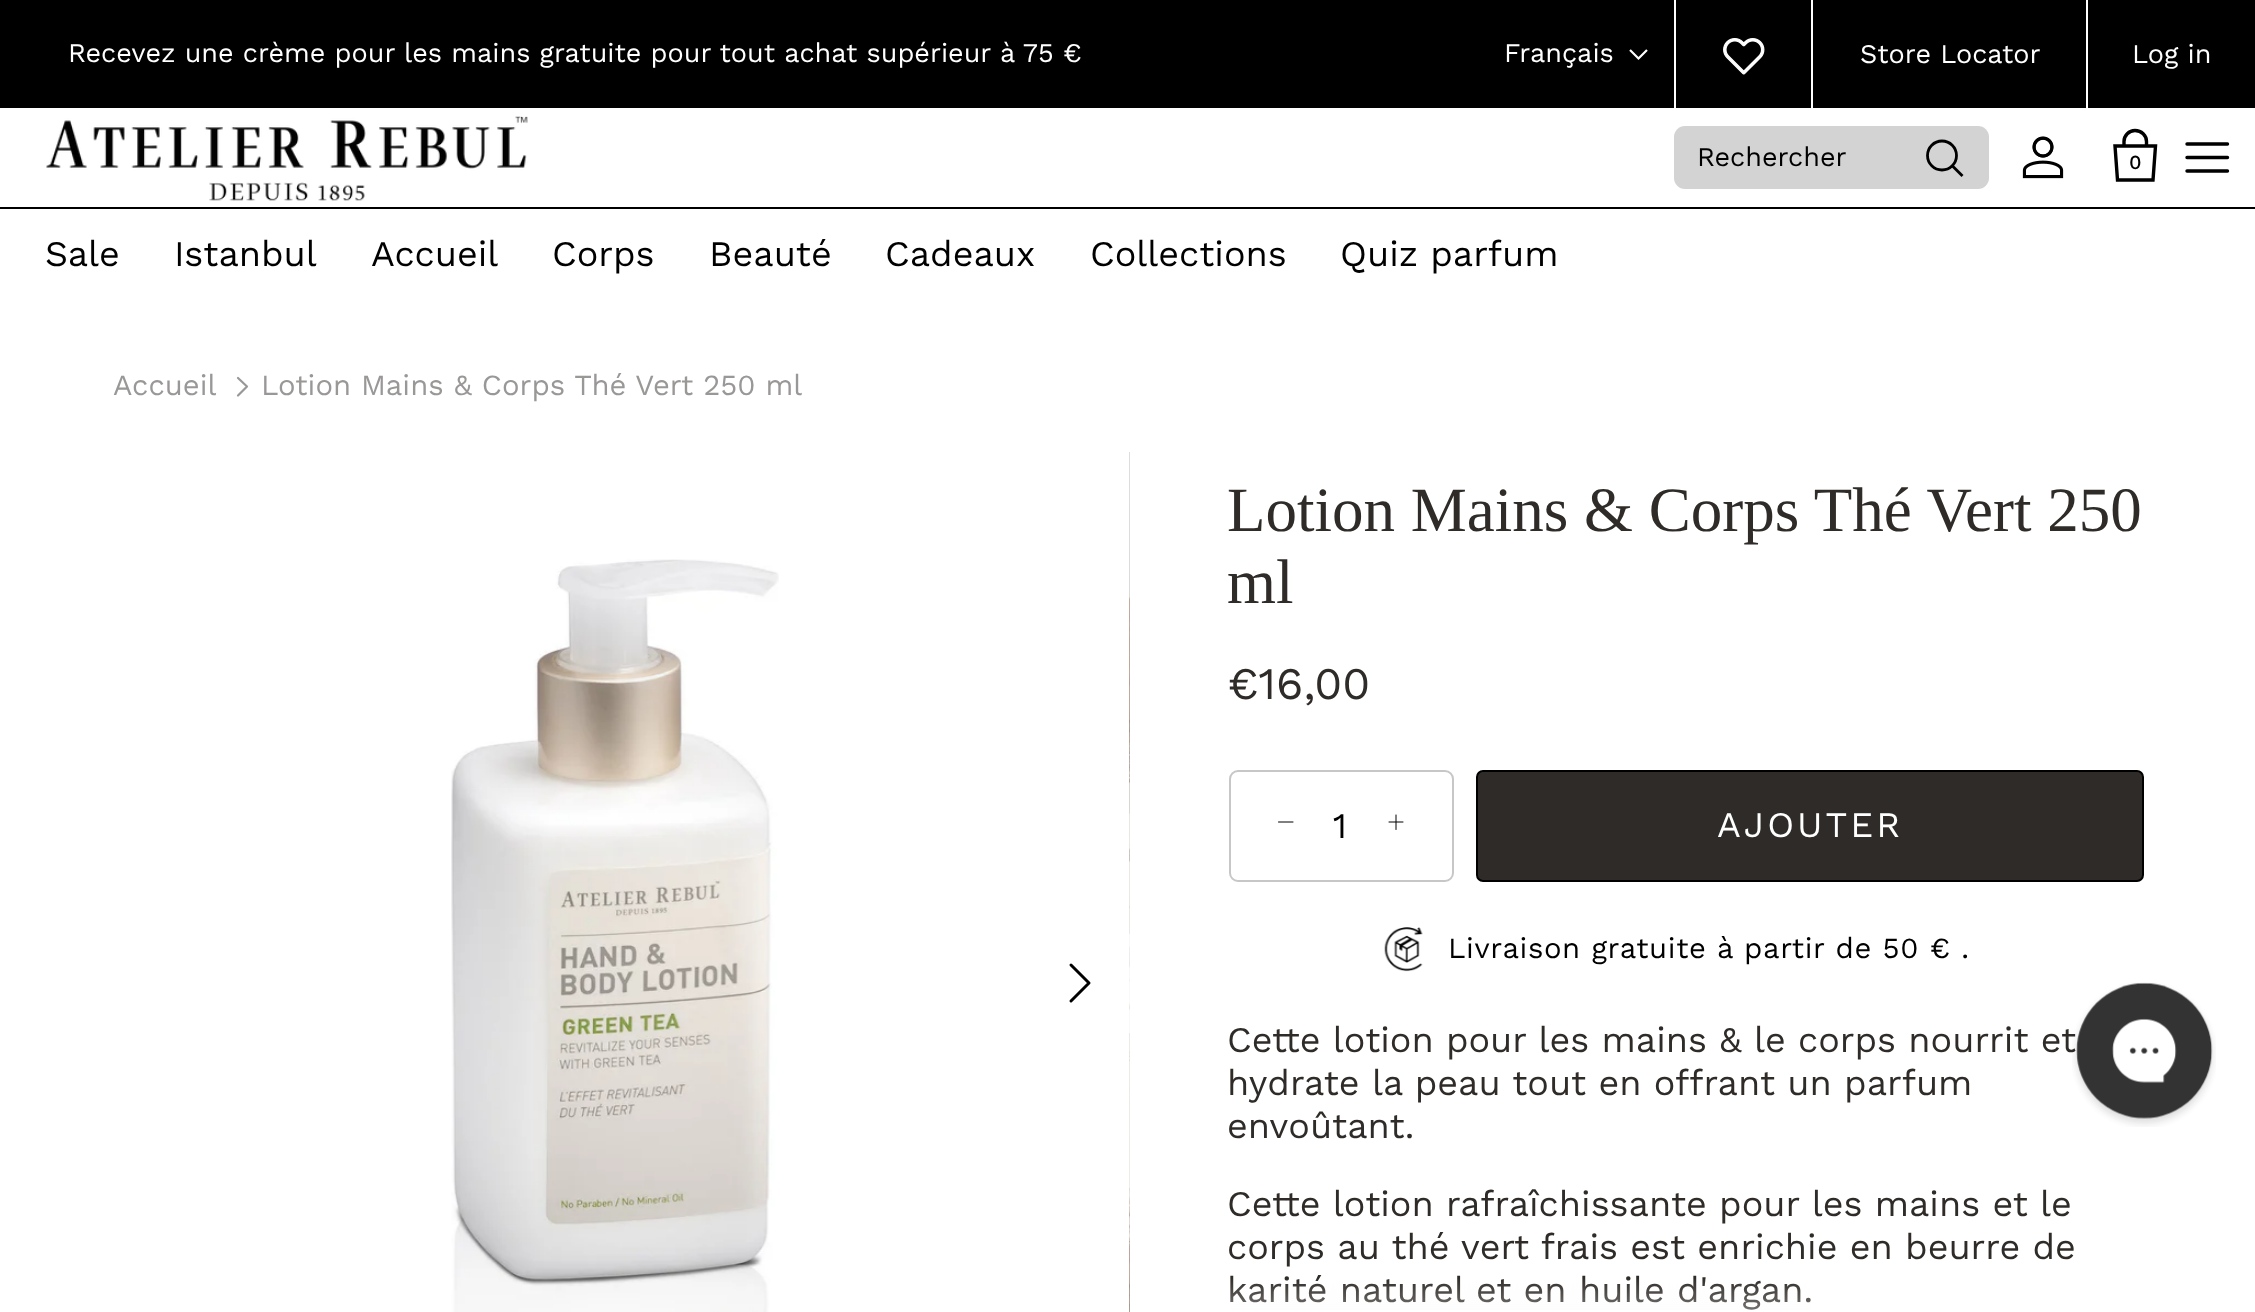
async function draw(canvas) {
	canvas.width = 2255;
	canvas.height = 1312;
	const c = canvas.getContext('2d');
	c.miterLimit = 4;
	c.fontKerning = 'normal';
	async function loadImage(src) {
		const img = new Image();
		img.src = src;
		await img.decode();
		return img;
	}
	let gradient;

	c.fillStyle = '#fff';
	c.fillRect(0, 0, 2255, 1312);
	c.fillStyle = '#000';
	c.fillRect(0, 0, 2255, 108);
	c.font = '27px Work Sans';
	c.fillStyle = '#fff';
	c.fillText('Recevez une crème pour les mains gratuite pour tout achat supérieur à 75 €', 68, 62);
	c.fillText('Français', 1504, 62);
	c.beginPath();
	c.moveTo(1647, 50);
	c.lineTo(1638.5, 58.5);
	c.lineTo(1630, 50);
	c.strokeStyle = '#fff';
	c.lineWidth = 2.2;
	c.stroke();
	c.fillRect(1811, 0, 2, 108);
	c.fillRect(1674, 0, 2, 108);
	c.drawImage(await loadImage('img1.png'), 1723, 38, 42, 37);
	c.fillRect(2086, 0, 2, 108);
	c.fillText('Store Locator', 1860, 63);
	c.fillText('Log in', 2132, 63);
	c.fillStyle = '#000';
	c.fillRect(0, 207, 2255, 2);
	c.drawImage(await loadImage('img2.png'), 46, 116, 482, 85);
	c.fillStyle = '#d3d3d3';
	c.beginPath();
	c.roundRect(1674, 126, 315, 63, 11);
	c.fill();
	c.fillStyle = '#000';
	c.fillText('Rechercher', 1697, 166);
	c.beginPath();
	c.arc(1942, 155.5, 14.5, 0, 2 * Math.PI);
	c.strokeStyle = '#000';
	c.lineWidth = 2.8;
	c.stroke();
	c.beginPath();
	c.moveTo(1953.5, 167);
	c.lineTo(1961.5, 175);
	c.lineCap = 'square';
	c.stroke();
	c.drawImage(await loadImage('img3.png'), 2022, 136, 42, 43);
	c.beginPath();
	c.moveTo(2124, 146);
	c.lineTo(2124, 141.5);
	c.bezierCurveTo(2124, 135.5, 2129, 130.5, 2135, 130.5);
	c.bezierCurveTo(2141.5, 130.5, 2146.5, 135.5, 2146.5, 141.5);
	c.lineTo(2146.5, 146);
	c.moveTo(2115, 146);
	c.lineTo(2155.5, 146);
	c.lineTo(2153, 180);
	c.lineTo(2117.5, 180);
	c.closePath();
	c.lineWidth = 3.4;
	c.lineCap = 'butt';
	c.stroke();
	c.font = '500 20px Work Sans';
	c.fillText('0', 2129, 169);
	c.beginPath();
	c.moveTo(2187, 157.5);
	c.lineTo(2227.5, 157.5);
	c.moveTo(2187, 144);
	c.lineTo(2227.5, 144);
	c.moveTo(2187, 171);
	c.lineTo(2227.5, 171);
	c.lineCap = 'round';
	c.lineJoin = 'round';
	c.stroke();
	c.font = '36px Work Sans';
	for (const [text, x, y] of [
		['Sale', 45, 266],
		['Istanbul', 174, 266],
		['Accueil', 371, 266],
		['Corps', 552, 266],
		['Beauté', 709, 266],
		['Cadeaux', 885, 266],
		['Collections', 1090, 266],
		['Quiz parfum', 1340, 266],
	]) {
		c.fillText(text, x, y);
	}
	c.font = '29.25px Work Sans';
	c.fillStyle = '#9a9897';
	c.fillText('Accueil', 113, 395);
	c.beginPath();
	c.moveTo(238, 395.5);
	c.lineTo(247, 386.5);
	c.lineTo(238, 378);
	c.strokeStyle = '#9a9897';
	c.lineWidth = 2.2;
	c.stroke();
	c.fillText('Lotion Mains & Corps Thé Vert 250 ml', 261, 395);
	c.drawImage(await loadImage('img4.png'), 451, 559, 328, 753);
	c.drawImage(await loadImage('img5.png'), 1129, 452, 1, 860);
	c.fillStyle = '#ffffffb3';
	c.beginPath();
	c.roundRect(1031, 934, 99, 99, [7, 0, 0, 7]);
	c.fill();
	c.beginPath();
	c.moveTo(1071, 1001);
	c.lineTo(1089, 983);
	c.lineTo(1071, 965);
	c.strokeStyle = '#000';
	c.lineWidth = 3;
	c.stroke();
	c.font = '63px Liberation Serif';
	c.fillStyle = '#2f2b28';
	c.fillText('Lotion Mains & Corps Thé Vert 250', 1227, 531);
	c.fillText('ml', 1227, 603);
	c.font = '45px Work Sans';
	c.fillText('€16,00', 1227, 699);
	c.beginPath();
	c.roundRect(1230, 771, 223, 110, 8);
	c.strokeStyle = '#c7c7c7';
	c.lineWidth = 2;
	c.lineJoin = 'miter';
	c.stroke();
	c.beginPath();
	c.moveTo(1278.5, 822);
	c.lineTo(1293, 822);
	c.strokeStyle = '#000';
	c.lineWidth = 1;
	c.lineJoin = 'round';
	c.stroke();
	c.font = '36px Work Sans';
	c.fillStyle = '#000';
	c.fillText('1', 1333, 838);
	c.beginPath();
	c.moveTo(1396, 815);
	c.lineTo(1396, 829.5);
	c.moveTo(1389, 822);
	c.lineTo(1403, 822);
	c.stroke();
	c.fillStyle = '#2f2b28';
	c.beginPath();
	c.roundRect(1477, 771, 666, 110, 6);
	c.fill();
	c.lineWidth = 2;
	c.lineJoin = 'miter';
	c.stroke();
	c.letterSpacing = '3px';
	c.fillStyle = '#fff';
	c.fillText('AJOUTER', 1717, 837);
	c.drawImage(await loadImage('img6.png'), 1384, 927, 39, 45);
	c.letterSpacing = '0.6px';
	c.font = '29.25px Work Sans';
	c.fillStyle = '#000';
	c.fillText('Livraison gratuite à partir de 50 € .', 1448, 958);
	c.letterSpacing = '0px';
	c.font = '36px Work Sans';
	c.fillStyle = '#2f2b28';
	for (const [text, x, y] of [
		['Cette lotion pour les mains & le corps nourrit et', 1227, 1052],
		['hydrate la peau tout en offrant un parfum', 1227, 1095],
		['envoûtant.', 1227, 1138],
		['Cette lotion rafraîchissante pour les mains et le', 1227, 1216],
		['corps au thé vert frais est enrichie en beurre de', 1227, 1259],
		['karité naturel et en huile d\'argan.', 1227, 1302],
	]) {
		c.fillText(text, x, y);
	}
	gradient = c.createLinearGradient(1686, 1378, 1686, 1277);
	gradient.addColorStop(0, '#fafafa');
	gradient.addColorStop(1, '#fafafa00');
	c.fillStyle = gradient;
	c.fillRect(1230, 1279, 581, 31);
	c.drawImage(await loadImage('img7.png'), 2072, 982, 144, 145);
}

draw(document.querySelector('canvas'));
